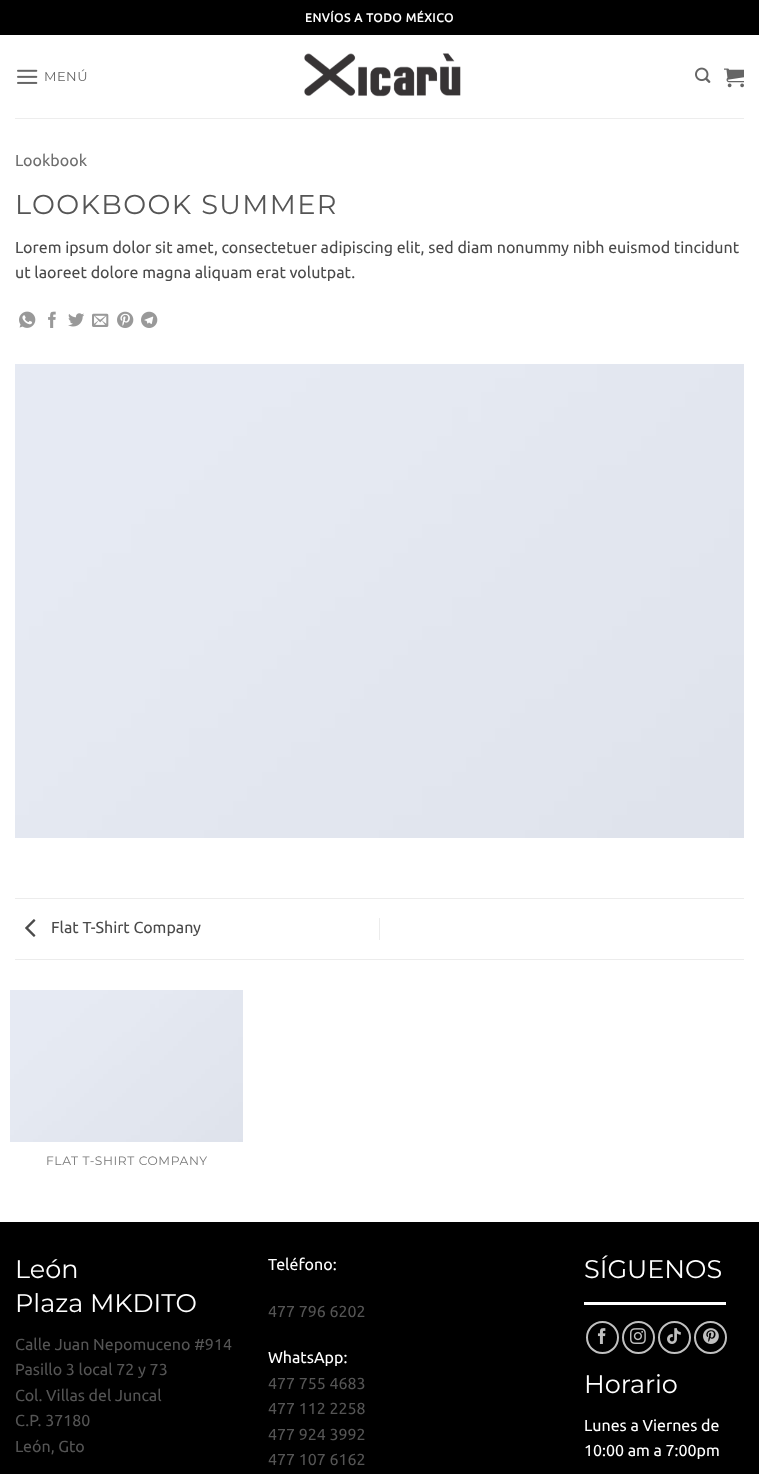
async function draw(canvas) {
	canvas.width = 759;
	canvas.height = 1474;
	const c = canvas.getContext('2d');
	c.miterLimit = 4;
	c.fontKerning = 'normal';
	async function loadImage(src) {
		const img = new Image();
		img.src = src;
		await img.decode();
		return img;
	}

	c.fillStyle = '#fff';
	c.fillRect(0, 0, 759, 1474);
	c.fillStyle = '#000';
	c.fillRect(0, 0, 759, 35);
	c.letterSpacing = '0.6px';
	c.font = 'bold 12px Ubuntu';
	c.fillStyle = '#fff';
	c.fillText('ENVÍOS A TODO MÉXICO', 305, 22);
	c.drawImage(await loadImage('img1.png'), 17, 69, 21, 15);
	c.letterSpacing = '0.5px';
	c.font = '100 13px Montserrat';
	c.fillStyle = '#656565';
	c.fillText('MENÚ', 44, 81);
	c.drawImage(await loadImage('img2.png'), 304, 53, 157, 44);
	c.drawImage(await loadImage('img3.png'), 695, 67, 16, 16);
	c.drawImage(await loadImage('img4.png'), 724, 68, 20, 20);
	c.fillStyle = '#ededed';
	c.fillRect(15, 118, 729, 1);
	c.letterSpacing = '0px';
	c.font = '16px Ubuntu';
	c.fillStyle = '#6e6e6e';
	c.fillText('Lookbook', 15, 166);
	c.letterSpacing = '1.4px';
	c.font = '100 27.25px Montserrat';
	c.fillStyle = '#555';
	c.fillText('LOOKBOOK SUMMER', 15, 214);
	c.letterSpacing = '0px';
	c.font = '16px Ubuntu';
	c.fillStyle = '#4a4a4a';
	c.fillText('Lorem ipsum dolor sit amet, consectetuer adipiscing elit, sed diam nonummy nibh euismod tincidunt', 15, 253);
	c.fillText('ut laoreet dolore magna aliquam erat volutpat.', 15, 278);
	c.drawImage(await loadImage('img5.png'), 19, 311, 17, 17);
	c.drawImage(await loadImage('img6.png'), 48, 311, 8, 17);
	c.drawImage(await loadImage('img7.png'), 68, 313, 16, 14);
	c.drawImage(await loadImage('img8.png'), 92, 313, 17, 14);
	c.drawImage(await loadImage('img9.png'), 117, 311, 17, 17);
	c.drawImage(await loadImage('img10.png'), 141, 311, 17, 17);
	c.drawImage(await loadImage('img11.png'), 15, 364, 729, 474);
	c.fillStyle = '#ececec';
	c.fillRect(15, 898, 729, 1);
	c.fillRect(15, 959, 729, 1);
	c.drawImage(await loadImage('img12.png'), 25, 919, 11, 18);
	c.fillStyle = '#4a4a4a';
	c.fillText('Flat T-Shirt Company', 51, 933);
	c.fillStyle = '#ececec';
	c.fillRect(379, 918, 1, 22);
	c.drawImage(await loadImage('img13.png'), 10, 990, 233, 152);
	c.letterSpacing = '0.6px';
	c.font = '100 12.25px Montserrat';
	c.fillStyle = '#777';
	c.fillText('FLAT T-SHIRT COMPANY', 46, 1165);
	c.fillStyle = '#000';
	c.fillRect(0, 1222, 759, 252);
	c.letterSpacing = '0px';
	c.font = '100 25.5px Montserrat';
	c.fillStyle = '#fff';
	c.fillText('León', 15, 1278);
	c.fillText('Plaza MKDITO', 15, 1312);
	c.font = '16px Ubuntu';
	c.fillStyle = '#555';
	for (const [text, x, y] of [
		['Calle Juan Nepomuceno #914', 15, 1350],
		['Pasillo 3 local 72 y 73', 15, 1375],
		['Col. Villas del Juncal', 15, 1401],
		['C.P. 37180', 15, 1426],
		['León, Gto', 15, 1452],
	]) {
		c.fillText(text, x, y);
	}
	c.fillStyle = '#fff';
	c.fillText('Teléfono:', 268, 1270);
	c.fillStyle = '#555';
	c.fillText('477 796 6202', 268, 1317);
	c.fillStyle = '#fff';
	c.fillText('WhatsApp:', 268, 1363);
	c.fillStyle = '#555';
	for (const [text, x, y] of [
		['477 755 4683', 268, 1389],
		['477 112 2258', 268, 1414],
		['477 924 3992', 268, 1440],
		['477 107 6162', 268, 1465],
	]) {
		c.fillText(text, x, y);
	}
	c.font = '100 25.5px Montserrat';
	c.fillStyle = '#fff';
	c.fillText('SÍGUENOS', 584, 1278);
	c.fillRect(584, 1302, 142, 3);
	c.beginPath();
	c.arc(602.5, 1337.5, 15.5, 0, 2 * Math.PI);
	c.strokeStyle = '#c0c0c0';
	c.lineWidth = 2;
	c.stroke();
	c.drawImage(await loadImage('img14.png'), 597, 1328, 9, 16);
	c.beginPath();
	c.arc(638.5, 1337.5, 15.5, 0, 2 * Math.PI);
	c.stroke();
	c.drawImage(await loadImage('img15.png'), 630, 1328, 16, 16);
	c.beginPath();
	c.arc(674.5, 1337.5, 15.5, 0, 2 * Math.PI);
	c.stroke();
	c.drawImage(await loadImage('img16.png'), 667, 1328, 14, 16);
	c.beginPath();
	c.arc(710.5, 1337.5, 15.5, 0, 2 * Math.PI);
	c.stroke();
	c.drawImage(await loadImage('img17.png'), 703, 1328, 16, 16);
	c.fillText('Horario', 584, 1393);
	c.font = '16px Ubuntu';
	c.fillText('Lunes a Viernes de', 584, 1431);
	c.fillText('10:00 am a 7:00pm', 584, 1456);
}

draw(document.querySelector('canvas'));
